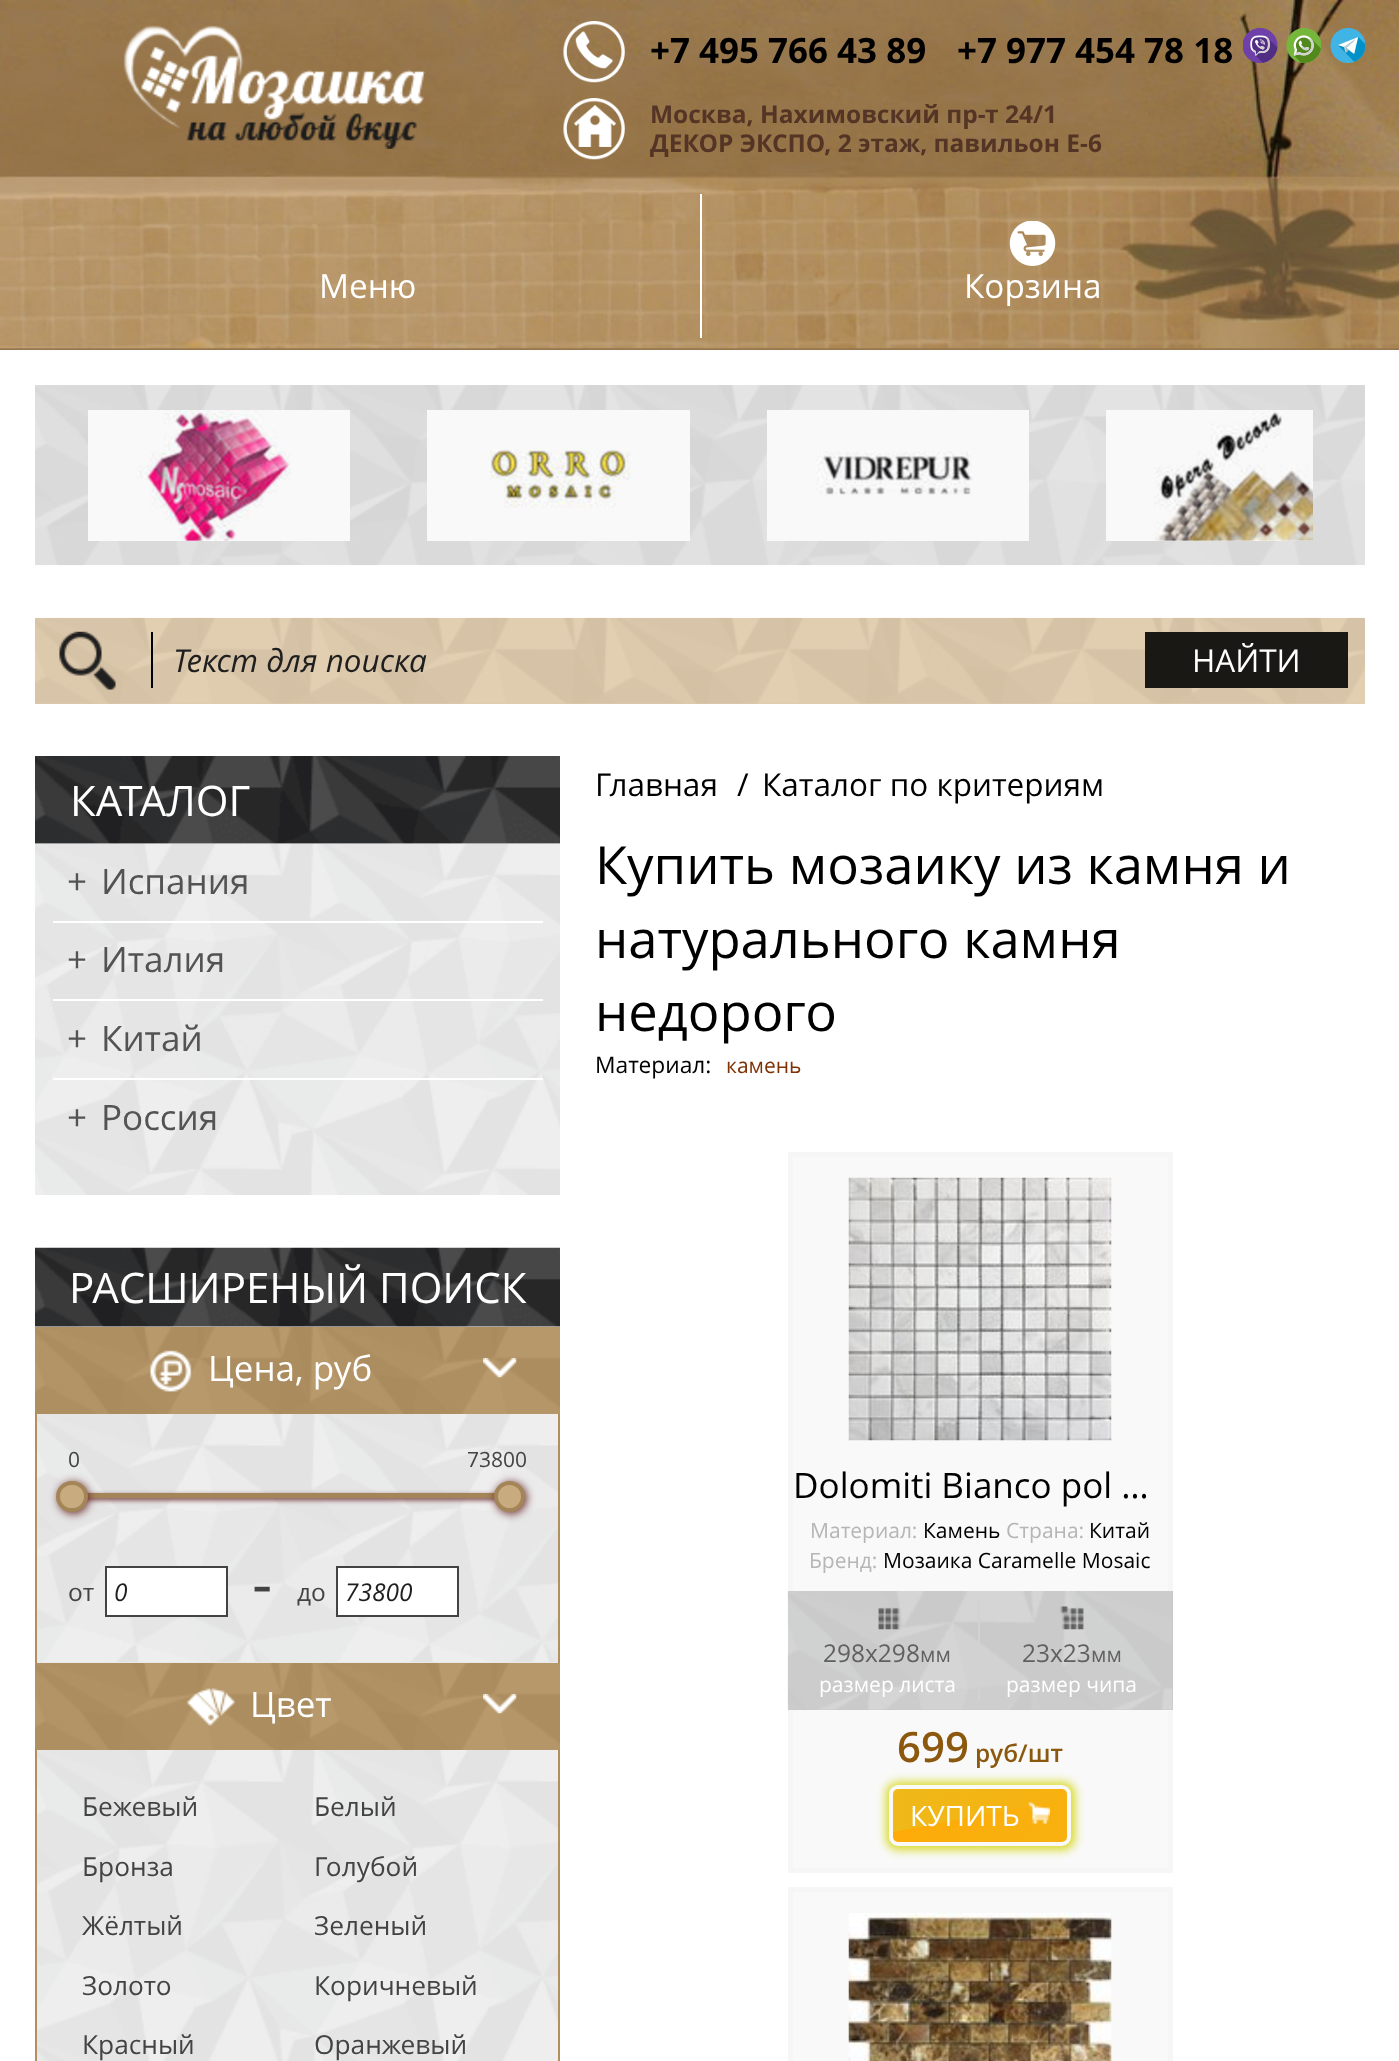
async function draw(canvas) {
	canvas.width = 1399;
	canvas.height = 2061;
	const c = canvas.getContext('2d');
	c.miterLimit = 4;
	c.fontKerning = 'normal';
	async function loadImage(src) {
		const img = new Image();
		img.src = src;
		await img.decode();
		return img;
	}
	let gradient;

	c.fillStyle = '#fff';
	c.fillRect(0, 0, 1399, 2061);
	c.fillStyle = '#98774e';
	c.fillRect(0, 348, 1399, 2);
	c.drawImage(await loadImage('img1.png'), 0, 0, 1399, 349);
	c.drawImage(await loadImage('img2.png'), 123, 25, 303, 124);
	c.drawImage(await loadImage('img3.png'), 563, 21, 62, 62);
	c.font = 'bold 35px Open Sans';
	c.fillStyle = '#000';
	c.fillText('+7 495 766 43 89', 650, 63);
	c.fillText('+7 977 454 78 18', 957, 63);
	c.drawImage(await loadImage('img4.png'), 1243, 28, 35, 35);
	c.drawImage(await loadImage('img5.png'), 1286, 28, 35, 35);
	c.drawImage(await loadImage('img6.png'), 1330, 28, 35, 35);
	c.drawImage(await loadImage('img7.png'), 563, 98, 62, 62);
	c.font = 'bold 24.5px Open Sans';
	c.fillStyle = '#543424';
	c.fillText('Москва, Нахимовский пр-т 24/1', 650, 123);
	c.fillText('ДЕКОР ЭКСПО, 2 этаж, павильон Е-6', 650, 152);
	c.font = '33.25px Open Sans';
	c.fillStyle = '#fff';
	c.fillText('Меню', 319, 298);
	c.fillRect(700, 194, 2, 144);
	c.drawImage(await loadImage('img8.png'), 1009, 221, 47, 45);
	c.fillText('Корзина', 964, 298);
	c.fillStyle = '#e3e3e3';
	c.fillRect(35, 385, 1330, 180);
	c.drawImage(await loadImage('img9.png'), 35, 385, 1330, 181);
	c.fillStyle = '#f9f9f9';
	c.fillRect(88, 410, 262, 131);
	c.drawImage(await loadImage('img10.png'), 137, 410, 154, 131);
	c.fillRect(427, 410, 263, 131);
	c.drawImage(await loadImage('img11.png'), 489, 449, 142, 59);
	c.fillRect(767, 410, 262, 131);
	c.drawImage(await loadImage('img12.png'), 816, 451, 157, 44);
	c.fillRect(1106, 410, 207, 131);
	c.drawImage(await loadImage('img13.png'), 1154, 410, 159, 131);
	c.fillStyle = '#e0caaa';
	c.fillRect(35, 618, 1330, 86);
	c.drawImage(await loadImage('img14.png'), 35, 617, 1330, 87);
	c.drawImage(await loadImage('img15.png'), 59, 631, 57, 59);
	c.fillStyle = '#000';
	c.fillRect(151, 632, 2, 56);
	c.font = 'italic 31.5px Open Sans';
	c.fillStyle = '#1f1f1f';
	c.fillText('Текст для поиска', 173, 672);
	c.fillStyle = '#191815';
	c.fillRect(1145, 632, 203, 56);
	c.font = '31.5px Open Sans';
	c.fillStyle = '#fff';
	c.fillText('НАЙТИ', 1192, 672);
	c.drawImage(await loadImage('img16.png'), 35, 756, 525, 88);
	c.font = '42px Open Sans';
	c.fillText('КАТАЛОГ', 70, 816);
	c.fillStyle = '#e9e9e9';
	c.fillRect(35, 844, 525, 351);
	c.drawImage(await loadImage('img17.png'), 35, 843, 525, 352);
	c.font = '35px Open Sans';
	c.fillStyle = '#535353';
	c.fillText('+', 67, 894);
	c.fillText('Испания', 101, 894);
	c.fillStyle = '#fff';
	c.fillRect(53, 921, 490, 2);
	c.fillStyle = '#535353';
	c.fillText('+', 67, 972);
	c.fillText('Италия', 101, 972);
	c.fillStyle = '#fff';
	c.fillRect(53, 999, 490, 2);
	c.fillStyle = '#535353';
	c.fillText('+', 67, 1051);
	c.fillText('Китай', 101, 1051);
	c.fillStyle = '#fff';
	c.fillRect(53, 1078, 490, 2);
	c.fillStyle = '#535353';
	c.fillText('+', 67, 1130);
	c.fillText('Россия', 101, 1130);
	c.drawImage(await loadImage('img18.png'), 35, 1247, 525, 80);
	c.font = '42px Open Sans';
	c.fillStyle = '#fff';
	c.fillText('РАСШИРЕНЫЙ ПОИСК', 69, 1303);
	c.fillStyle = '#b28f5c';
	c.fillRect(35, 1327, 525, 87);
	c.drawImage(await loadImage('img19.png'), 35, 1327, 525, 87);
	c.drawImage(await loadImage('img20.png'), 150, 1350, 42, 42);
	c.font = '35px Open Sans';
	c.fillStyle = '#fff';
	c.fillText('Цена, руб', 208, 1381);
	c.drawImage(await loadImage('img21.png'), 483, 1358, 34, 20);
	c.fillStyle = '#e9e9e9';
	c.fillRect(37, 1414, 521, 249);
	c.drawImage(await loadImage('img22.png'), 37, 1414, 521, 248);
	c.fillStyle = '#b28f5c';
	c.fillRect(558, 1414, 2, 249);
	c.fillRect(35, 1414, 2, 249);
	c.font = '21px Open Sans';
	c.fillStyle = '#434343';
	c.fillText('0', 68, 1467);
	c.fillText('73800', 467, 1467);
	c.fillStyle = '#601818db';
	c.filter = 'blur(2.5px)';
	c.beginPath();
	c.rect(74, 1495, 437, 5);
	c.fill();
	c.filter = 'none';
	c.fillStyle = '#a38558';
	c.fillRect(87, 1493, 408, 5);
	c.fillStyle = '#601818db';
	c.filter = 'blur(4.5px)';
	c.beginPath();
	c.roundRect(58, 1482, 31, 32, 15.5);
	c.fill();
	c.filter = 'none';
	c.fillStyle = '#c8ab7f';
	c.beginPath();
	c.roundRect(58, 1483, 28, 27, 13.5);
	c.fill();
	c.strokeStyle = '#a38558';
	c.lineWidth = 4;
	c.stroke();
	c.fillStyle = '#601818db';
	c.filter = 'blur(4.5px)';
	c.beginPath();
	c.roundRect(495, 1482, 32, 32, 16);
	c.fill();
	c.filter = 'none';
	c.fillStyle = '#c8ab7f';
	c.beginPath();
	c.arc(509.5, 1496.5, 13.5, 0, 2 * Math.PI);
	c.fill();
	c.stroke();
	c.font = '24.5px Open Sans';
	c.fillStyle = '#434343';
	c.fillText('oт', 68, 1601);
	c.fillStyle = '#fff';
	c.beginPath();
	c.rect(106, 1567, 121, 49);
	c.fill();
	c.strokeStyle = '#434343';
	c.lineWidth = 2;
	c.stroke();
	c.font = 'italic 24.5px Open Sans';
	c.fillStyle = '#1f1f1f';
	c.fillText('0', 114, 1601);
	c.font = '63px Open Sans';
	c.fillStyle = '#434343';
	c.fillText('-', 252, 1606);
	c.font = '24.5px Open Sans';
	c.fillText('до', 297, 1601);
	c.fillStyle = '#fff';
	c.beginPath();
	c.rect(337, 1567, 121, 49);
	c.fill();
	c.stroke();
	c.font = 'italic 24.5px Open Sans';
	c.fillStyle = '#1f1f1f';
	c.fillText('73800', 345, 1601);
	c.fillStyle = '#b28f5c';
	c.fillRect(35, 1663, 525, 87);
	c.drawImage(await loadImage('img23.png'), 35, 1663, 525, 87);
	c.drawImage(await loadImage('img24.png'), 186, 1688, 49, 38);
	c.font = '35px Open Sans';
	c.fillStyle = '#fff';
	c.fillText('Цвет', 250, 1717);
	c.drawImage(await loadImage('img25.png'), 483, 1694, 34, 20);
	c.fillStyle = '#e9e9e9';
	c.fillRect(37, 1750, 521, 311);
	c.drawImage(await loadImage('img26.png'), 37, 1750, 521, 311);
	c.fillStyle = '#b28f5c';
	c.fillRect(558, 1750, 2, 311);
	c.fillRect(35, 1750, 2, 311);
	c.font = '26.25px Open Sans';
	c.fillStyle = '#434343';
	for (const [text, x, y] of [
		['Бежевый', 82, 1816],
		['Белый', 314, 1816],
		['Бронза', 82, 1876],
		['Голубой', 314, 1876],
		['Жёлтый', 82, 1935],
		['Зеленый', 314, 1935],
		['Золото', 82, 1995],
		['Коричневый', 314, 1995],
		['Красный', 82, 2054],
		['Оранжевый', 314, 2054],
	]) {
		c.fillText(text, x, y);
	}
	c.font = '31.5px Open Sans';
	c.fillStyle = '#000';
	for (const [text, x, y] of [
		['Главная', 595, 796],
		['/', 737, 796],
		['Каталог по критериям', 762, 796],
	]) {
		c.fillText(text, x, y);
	}
	c.font = '52.5px Open Sans';
	for (const [text, x, y] of [
		['Купить мозаику из камня и', 595, 884],
		['натурального камня', 595, 958],
		['недорого', 595, 1031],
	]) {
		c.fillText(text, x, y);
	}
	c.font = '22.75px Open Sans';
	c.fillText('Материал:', 595, 1073);
	c.font = '21px Open Sans';
	c.fillStyle = '#7e3102';
	c.fillText('камень', 726, 1073);
	c.fillStyle = '#f9f9f9';
	c.beginPath();
	c.rect(790.5, 1154.5, 380, 716);
	c.fill();
	c.strokeStyle = '#f6f6f6';
	c.lineWidth = 5;
	c.stroke();
	c.drawImage(await loadImage('img27.png'), 848, 1177, 264, 264);
	c.font = '35px Open Sans';
	c.fillStyle = '#000';
	c.fillText('Dolomiti Bianco pol …', 793, 1498);
	c.font = '21px Open Sans';
	c.fillStyle = '#b6b6b6';
	c.fillText('Материал:', 810, 1538);
	c.fillStyle = '#000';
	c.fillText('Камень', 923, 1538);
	c.fillStyle = '#b6b6b6';
	c.fillText('Cтрана:', 1006, 1538);
	c.fillStyle = '#000';
	c.fillText('Китай', 1089, 1538);
	c.fillStyle = '#b6b6b6';
	c.fillText('Бренд:', 809, 1568);
	c.fillStyle = '#000';
	c.fillText('Мозаика Caramelle Mosaic', 883, 1568);
	c.fillStyle = '#c5c4c4';
	c.fillRect(788, 1591, 385, 119);
	c.drawImage(await loadImage('img28.png'), 787, 1591, 386, 119);
	c.fillStyle = '#d3d2d2';
	c.fillRect(978, 1600, 2, 101);
	c.drawImage(await loadImage('img29.png'), 878, 1607, 22, 23);
	c.font = '24.5px Open Sans';
	c.fillStyle = '#606060';
	c.fillText('298х298', 823, 1662);
	c.font = '21px Open Sans';
	c.fillText('мм', 920, 1662);
	c.fillStyle = '#fff';
	c.fillText('размер листа', 819, 1692);
	c.drawImage(await loadImage('img30.png'), 1060, 1606, 24, 24);
	c.font = '24.5px Open Sans';
	c.fillStyle = '#606060';
	c.fillText('23x23', 1022, 1662);
	c.font = '21px Open Sans';
	c.fillText('мм', 1091, 1662);
	c.fillStyle = '#fff';
	c.fillText('размер чипа', 1006, 1692);
	c.font = '600 42px Open Sans';
	c.fillStyle = '#8b580e';
	c.fillText('699', 897, 1762);
	c.font = '600 24.5px Open Sans';
	c.fillText('руб/шт', 975, 1762);
	c.fillStyle = '#d4d60de3';
	c.filter = 'blur(5px)';
	c.beginPath();
	c.roundRect(886, 1782, 189, 68, 12);
	c.fill();
	c.filter = 'none';
	gradient = c.createLinearGradient(972, 1773, 988, 1858);
	gradient.addColorStop(0, '#eeb919');
	gradient.addColorStop(0.5, '#eeb919');
	gradient.addColorStop(0.5, '#ffaa07');
	gradient.addColorStop(1, '#f8b10f');
	c.fillStyle = gradient;
	c.fillRect(893, 1789, 174, 53);
	c.save();
	c.beginPath();
	c.roundRect(889, 1785, 182, 61, 9);
	c.clip();
	gradient = c.createLinearGradient(1147, 1827, 1163, 1912);
	gradient.addColorStop(0, '#eeb919');
	gradient.addColorStop(0.5, '#eeb919');
	gradient.addColorStop(0.5, '#ffaa07');
	gradient.addColorStop(1, '#f8b10f');
	c.fillStyle = gradient;
	c.fillRect(1068, 1843, 3, 1);
	gradient = c.createLinearGradient(893, 1816, 1068, 1816);
	gradient.addColorStop(0, '#f8b10f00');
	gradient.addColorStop(1, '#f8b10f');
	c.fillStyle = gradient;
	c.fillRect(897, 1785, 171, 61);
	c.restore();
	c.beginPath();
	c.roundRect(891, 1787, 178, 57, 7);
	c.strokeStyle = '#f9f9f9';
	c.lineWidth = 4;
	c.stroke();
	c.font = '28px Open Sans';
	c.fillStyle = '#fff';
	c.fillText('КУПИТЬ', 910, 1826);
	c.drawImage(await loadImage('img31.png'), 1027, 1802, 23, 22);
	c.fillStyle = '#f9f9f9';
	c.beginPath();
	c.rect(790.5, 1889.5, 380, 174);
	c.fill();
	c.strokeStyle = '#f6f6f6';
	c.lineWidth = 5;
	c.stroke();
	c.drawImage(await loadImage('img32.png'), 848, 1913, 264, 148);
}

draw(document.querySelector('canvas'));
